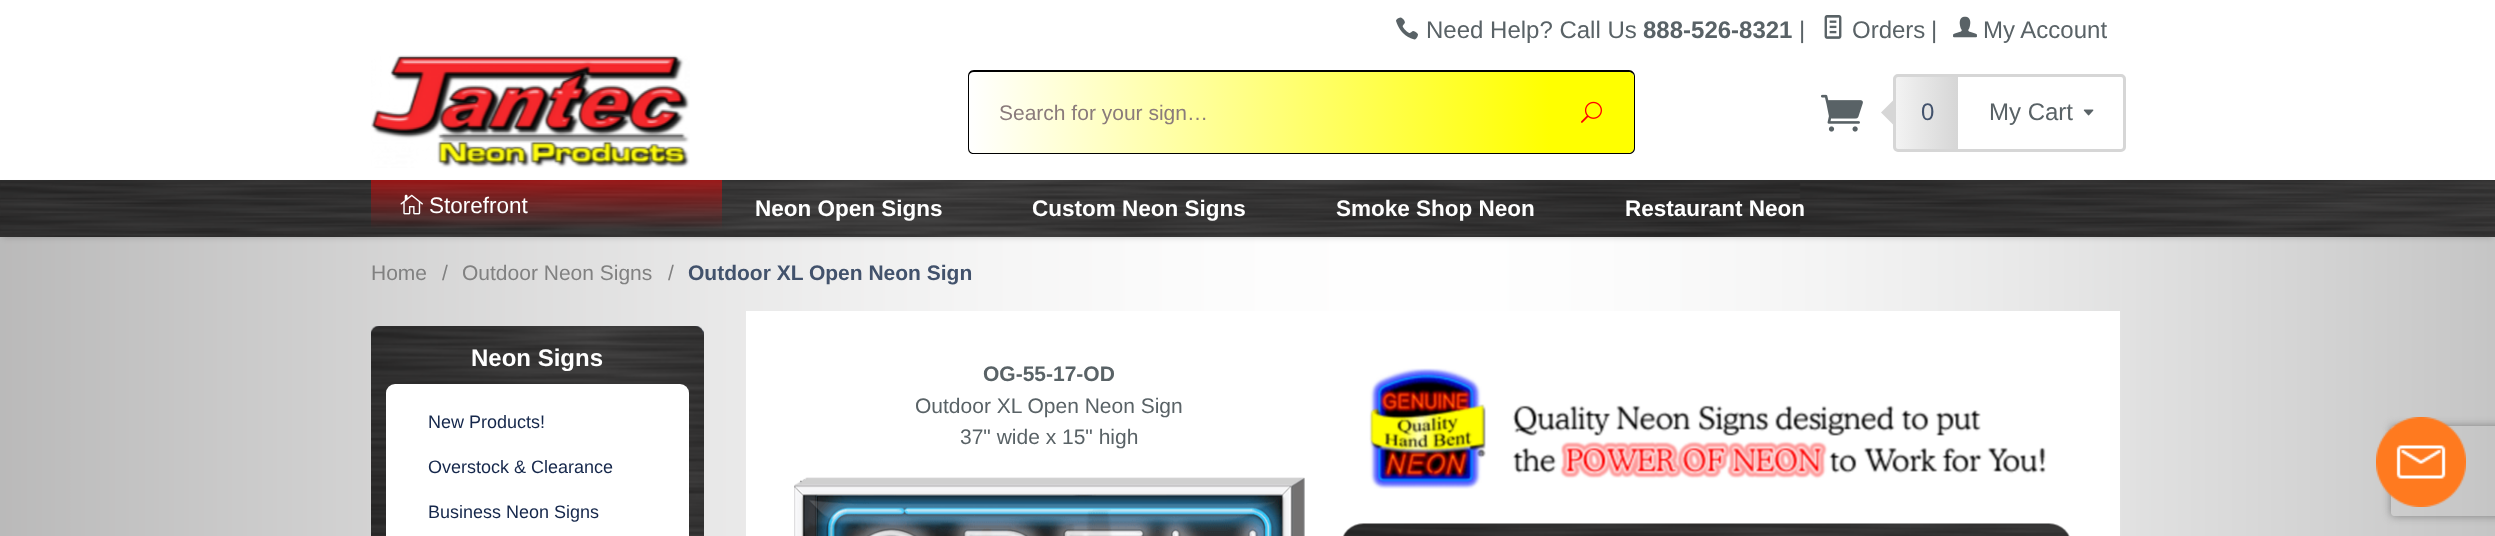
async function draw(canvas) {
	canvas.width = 2495;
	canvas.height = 536;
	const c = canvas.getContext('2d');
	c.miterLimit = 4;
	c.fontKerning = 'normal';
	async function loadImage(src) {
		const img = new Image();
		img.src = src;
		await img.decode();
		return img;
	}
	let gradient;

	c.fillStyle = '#fff';
	c.fillRect(0, 0, 2495, 536);
	c.drawImage(await loadImage('img1.png'), 0, 237, 2495, 299);
	c.drawImage(await loadImage('img2.png'), 1396, 17, 22, 23);
	c.font = '24px Liberation Sans';
	c.fillStyle = '#596266';
	c.fillText('Need Help? Call Us', 1426, 38);
	c.font = 'bold 24px Liberation Sans';
	c.fillText('888-526-8321', 1643, 38);
	c.font = '24px Liberation Sans';
	c.fillText('|', 1799, 38);
	c.drawImage(await loadImage('img3.png'), 1824, 15, 18, 24);
	c.fillText('Orders', 1852, 38);
	c.fillText('|', 1931, 38);
	c.drawImage(await loadImage('img4.png'), 1953, 16, 24, 22);
	c.fillText('My Account', 1983, 38);
	c.drawImage(await loadImage('img5.png'), 371, 55, 319, 113);
	gradient = c.createLinearGradient(969, 113, 1550, 112);
	gradient.addColorStop(0, '#fff');
	gradient.addColorStop(1, '#ff0');
	c.fillStyle = gradient;
	c.beginPath();
	c.roundRect(969, 72, 581, 81, [5, 0, 0, 5]);
	c.fill();
	c.fillStyle = '#000';
	c.beginPath();
	c.moveTo(974, 70);
	c.lineTo(1550, 70);
	c.lineTo(1550, 154);
	c.lineTo(974, 154);
	c.bezierCurveTo(970, 154, 968, 152, 968, 148);
	c.lineTo(968, 76);
	c.bezierCurveTo(968, 73, 970, 70, 974, 70);
	c.closePath();
	c.moveTo(974, 72);
	c.lineTo(1550, 72);
	c.lineTo(1550, 153);
	c.lineTo(974, 153);
	c.bezierCurveTo(971, 153, 969, 151, 969, 148);
	c.lineTo(969, 76);
	c.bezierCurveTo(969, 74, 971, 72, 974, 72);
	c.closePath();
	c.fill('evenodd');
	c.font = '21px Liberation Sans';
	c.fillStyle = '#8a7b7b';
	c.fillText('Search for your sign…', 999, 120);
	c.fillStyle = '#ff0';
	c.beginPath();
	c.roundRect(1550, 72, 84, 81, [0, 5, 5, 0]);
	c.fill();
	c.fillStyle = '#000';
	c.beginPath();
	c.moveTo(1550, 70);
	c.lineTo(1629, 70);
	c.bezierCurveTo(1632, 70, 1635, 73, 1635, 76);
	c.lineTo(1635, 148);
	c.bezierCurveTo(1635, 152, 1632, 154, 1629, 154);
	c.lineTo(1550, 154);
	c.closePath();
	c.moveTo(1550, 72);
	c.lineTo(1629, 72);
	c.bezierCurveTo(1631, 72, 1634, 74, 1634, 76);
	c.lineTo(1634, 148);
	c.bezierCurveTo(1634, 151, 1631, 153, 1629, 153);
	c.lineTo(1550, 153);
	c.closePath();
	c.fill('evenodd');
	c.drawImage(await loadImage('img6.png'), 1581, 101, 21, 22);
	c.drawImage(await loadImage('img7.png'), 1821, 94, 42, 38);
	c.beginPath();
	c.roundRect(1894.5, 75.5, 230, 75, 3.5);
	c.strokeStyle = '#d6d6d6';
	c.lineWidth = 3;
	c.stroke();
	c.fillStyle = '#d6d6d6';
	c.beginPath();
	c.moveTo(1896, 97.5);
	c.lineTo(1896, 127.5);
	c.lineTo(1881, 112.5);
	c.closePath();
	c.fill();
	gradient = c.createLinearGradient(1896, 113, 1958, 113);
	gradient.addColorStop(0, '#d6d6d64d');
	gradient.addColorStop(1, '#d6d6d6');
	c.fillStyle = gradient;
	c.fillRect(1896, 77, 62, 72);
	c.font = '24px Liberation Sans';
	c.fillStyle = '#42526c';
	c.fillText('0', 1921, 120);
	c.fillStyle = '#596266';
	c.fillText('My Cart', 1989, 120);
	c.drawImage(await loadImage('img8.png'), 2083, 109, 11, 7);
	c.fillStyle = '#00000033';
	c.filter = 'blur(3px)';
	c.beginPath();
	c.rect(3, 186, 2490, 51);
	c.fill();
	c.filter = 'none';
	c.drawImage(await loadImage('img9.png'), 0, 180, 2495, 57);
	c.drawImage(await loadImage('img10.png'), 400, 194, 23, 21);
	c.font = '22.5px Liberation Sans';
	c.fillStyle = '#fff';
	c.fillText('Storefront', 429, 213);
	c.font = 'bold 22.5px Liberation Sans';
	for (const [text, x, y] of [
		['Neon Open Signs', 755, 216],
		['Custom Neon Signs', 1032, 216],
		['Smoke Shop Neon', 1336, 216],
		['Restaurant Neon', 1625, 216],
	]) {
		c.fillText(text, x, y);
	}
	c.font = '21px Liberation Sans';
	c.fillStyle = '#818181';
	for (const [text, x, y] of [
		['Home', 371, 280],
		['/', 442, 280],
		['Outdoor Neon Signs', 462, 280],
		['/', 668, 280],
	]) {
		c.fillText(text, x, y);
	}
	c.font = 'bold 21px Liberation Sans';
	c.fillStyle = '#42526c';
	c.fillText('Outdoor XL Open Neon Sign', 688, 280);
	c.fillStyle = '#42506d';
	c.beginPath();
	c.roundRect(371, 326, 333, 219, 9);
	c.fill();
	c.drawImage(await loadImage('img11.png'), 371, 326, 333, 210);
	c.font = 'bold 24px Liberation Sans';
	c.fillStyle = '#fff';
	c.fillText('Neon Signs', 471, 366);
	c.beginPath();
	c.roundRect(386, 384, 303, 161, 9);
	c.fill();
	c.font = '18px Liberation Sans';
	c.fillStyle = '#15274b';
	for (const [text, x, y] of [
		['New Products!', 428, 428],
		['Overstock & Clearance', 428, 473],
		['Business Neon Signs', 428, 518],
	]) {
		c.fillText(text, x, y);
	}
	c.fillStyle = '#fff';
	c.fillRect(746, 311, 1374, 225);
	c.font = 'bold 21px Liberation Sans';
	c.fillStyle = '#596266';
	c.fillText('OG-55-17-OD', 983, 381);
	c.font = '21px Liberation Sans';
	c.fillText('Outdoor XL Open Neon Sign', 915, 413);
	c.fillText('37" wide x 15" high', 960, 444);
	c.drawImage(await loadImage('img12.png'), 794, 477, 511, 59);
	c.drawImage(await loadImage('img13.png'), 1369, 368, 677, 121);
	c.drawImage(await loadImage('img14.png'), 1342, 523, 728, 13);
	c.save();
	c.beginPath();
	c.moveTo(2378, 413);
	c.lineTo(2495, 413);
	c.lineTo(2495, 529);
	c.lineTo(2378, 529);
	c.closePath();
	c.moveTo(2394, 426);
	c.lineTo(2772, 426);
	c.bezierCurveTo(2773.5, 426, 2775, 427.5, 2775, 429);
	c.lineTo(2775, 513);
	c.bezierCurveTo(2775, 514.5, 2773.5, 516, 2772, 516);
	c.lineTo(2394, 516);
	c.bezierCurveTo(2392.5, 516, 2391, 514.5, 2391, 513);
	c.lineTo(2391, 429);
	c.bezierCurveTo(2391, 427.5, 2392.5, 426, 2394, 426);
	c.closePath();
	c.clip('evenodd');
	c.fillStyle = '#808080';
	c.filter = 'blur(4px)';
	c.beginPath();
	c.roundRect(2391, 426, 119, 90, 3);
	c.fill();
	c.filter = 'none';
	c.restore();
	c.drawImage(await loadImage('img15.png'), 2376, 417, 90, 90);
}

draw(document.querySelector('canvas'));
